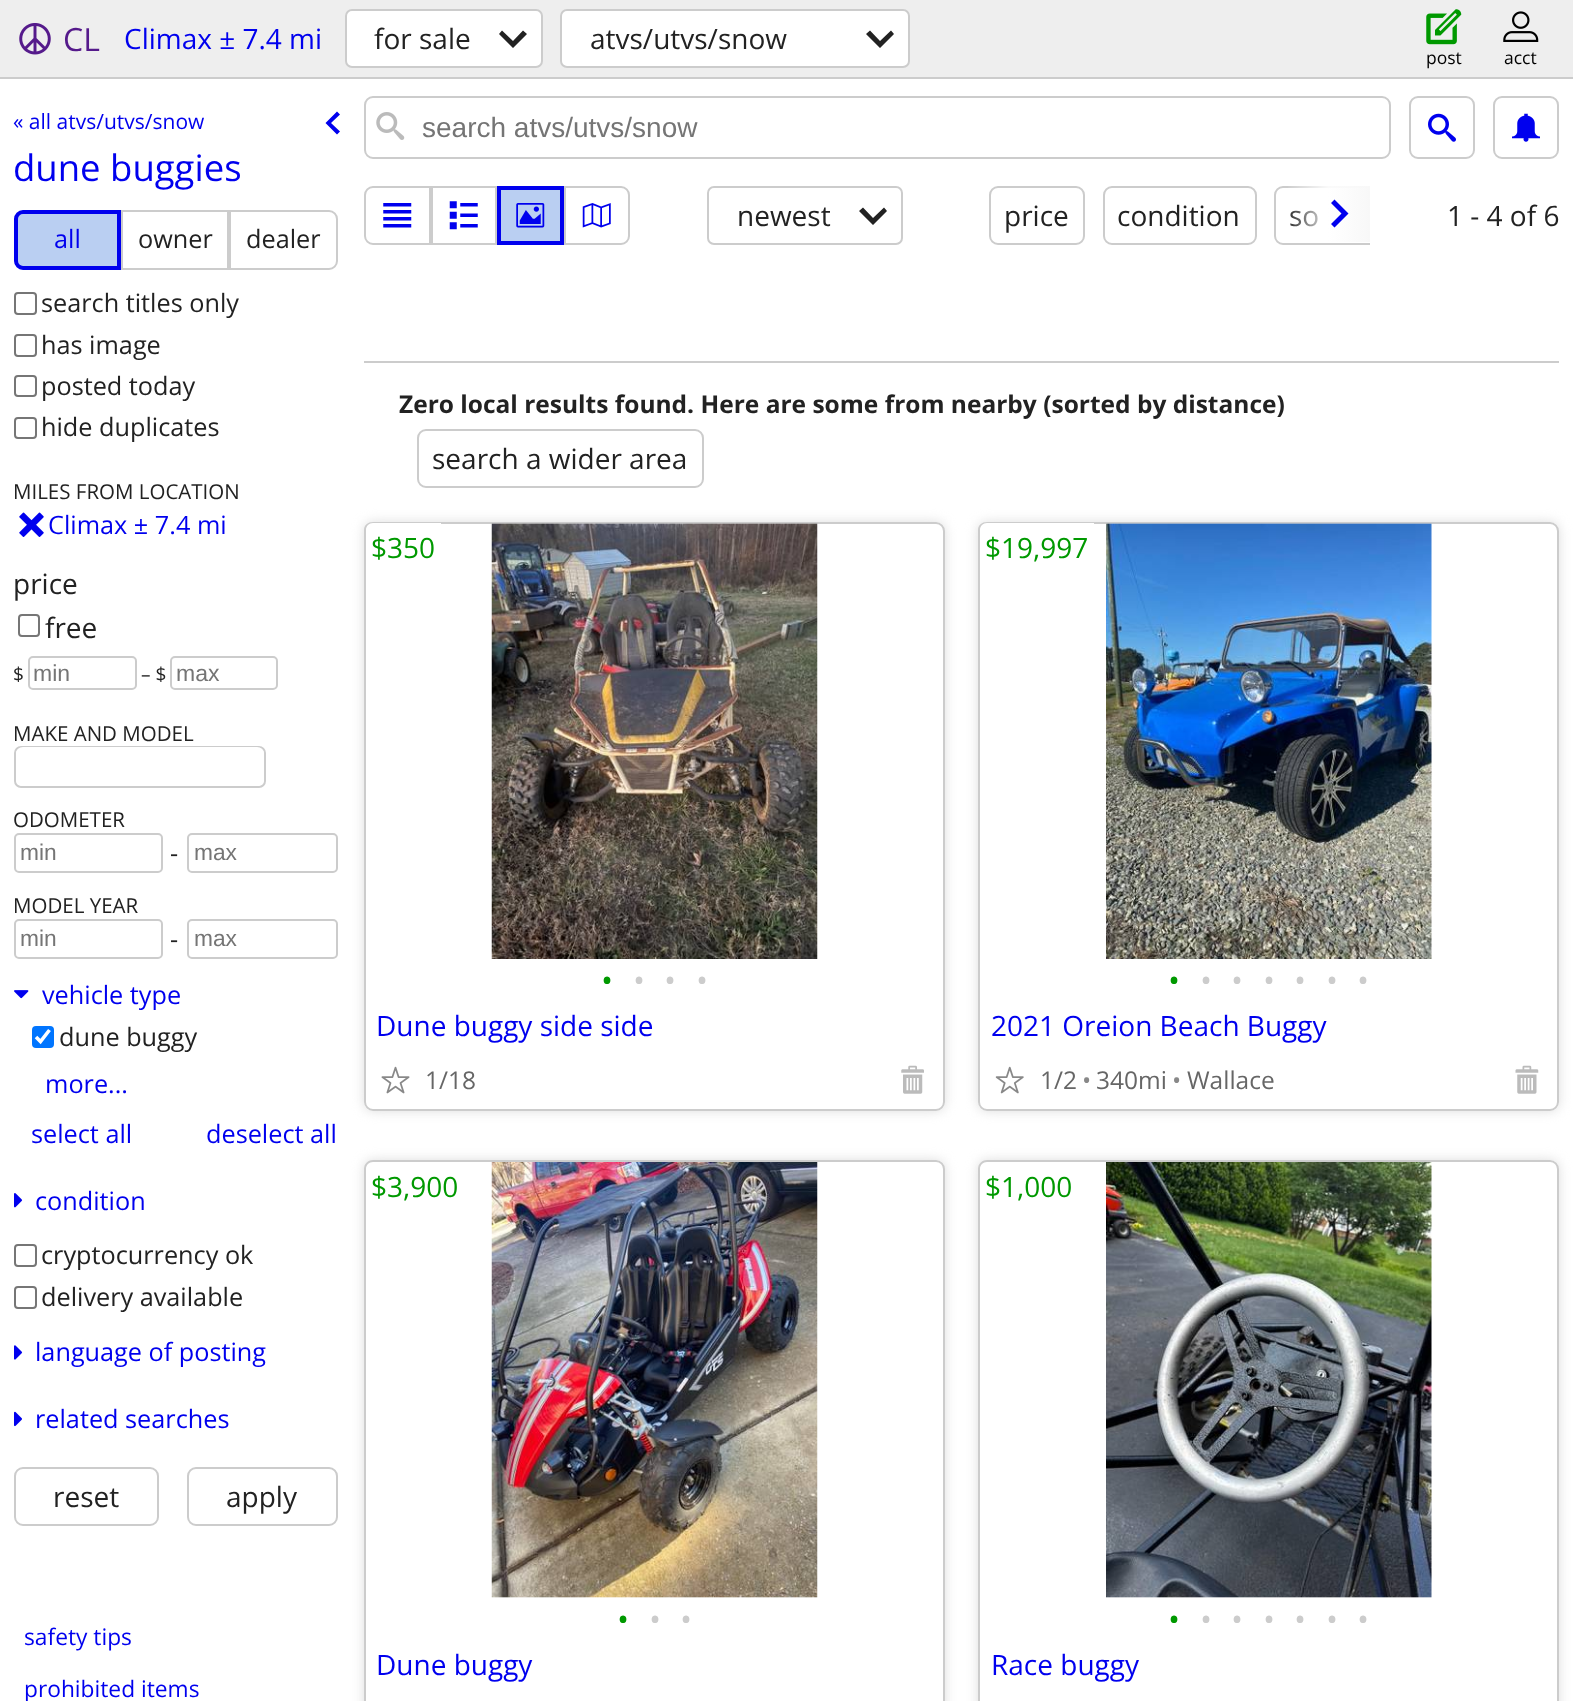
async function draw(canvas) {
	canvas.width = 1573;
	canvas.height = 1701;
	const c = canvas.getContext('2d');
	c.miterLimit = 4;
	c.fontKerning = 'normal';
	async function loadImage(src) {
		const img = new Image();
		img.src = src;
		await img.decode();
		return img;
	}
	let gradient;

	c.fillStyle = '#fff';
	c.fillRect(0, 0, 1573, 1701);
	c.fillStyle = '#eee';
	c.fillRect(0, 0, 1573, 77);
	c.fillStyle = '#ccc';
	c.fillRect(0, 77, 1573, 2);
	c.drawImage(await loadImage('img1.png'), 19, 23, 32, 32);
	c.font = '32px Open Sans';
	c.fillStyle = '#551a8b';
	c.fillText('CL', 63, 51);
	c.font = '28px Open Sans';
	c.fillStyle = '#00e';
	c.fillText('Climax ± 7.4 mi', 124, 49);
	c.fillStyle = '#fff';
	c.beginPath();
	c.roundRect(346, 10, 196, 57, 6);
	c.fill();
	c.strokeStyle = '#ccc';
	c.lineWidth = 2;
	c.stroke();
	c.fillStyle = '#222';
	c.fillText('for sale', 374, 49);
	c.beginPath();
	c.moveTo(527, 34);
	c.lineTo(523, 30.5);
	c.lineTo(513, 41);
	c.lineTo(502, 30.5);
	c.lineTo(499, 34);
	c.lineTo(513, 48);
	c.closePath();
	c.fill();
	c.fillStyle = '#fff';
	c.beginPath();
	c.roundRect(561, 10, 348, 57, 6);
	c.fill();
	c.stroke();
	c.fillStyle = '#222';
	c.fillText('atvs/utvs/snow', 590, 49);
	c.beginPath();
	c.moveTo(894, 34);
	c.lineTo(891, 30.5);
	c.lineTo(880, 41);
	c.lineTo(870, 30.5);
	c.lineTo(866, 34);
	c.lineTo(880, 48);
	c.closePath();
	c.fill();
	c.drawImage(await loadImage('img2.png'), 1426, 9, 36, 36);
	c.font = '17.5px Open Sans';
	c.fillStyle = '#000';
	c.fillText('post', 1426, 64);
	c.drawImage(await loadImage('img3.png'), 1503, 11, 36, 31);
	c.fillText('acct', 1504, 64);
	c.font = '21px Open Sans';
	c.fillStyle = '#00e';
	c.fillText('« all atvs/utvs/snow', 13, 129);
	c.font = '36.5px Open Sans';
	c.fillText('dune buggies', 13, 181);
	c.beginPath();
	c.moveTo(337, 134.5);
	c.lineTo(340, 131.5);
	c.lineTo(331, 123);
	c.lineTo(340, 114.5);
	c.lineTo(337, 111.5);
	c.lineTo(325.5, 123);
	c.closePath();
	c.fill();
	c.fillStyle = '#bacff2';
	c.beginPath();
	c.roundRect(16, 212, 103, 56, [7, 0, 0, 7]);
	c.fill();
	c.strokeStyle = '#00e';
	c.lineWidth = 4;
	c.stroke();
	c.font = '25.25px Open Sans';
	c.fillStyle = '#00e';
	c.fillText('all', 54, 248);
	c.strokeStyle = '#ccc';
	c.lineWidth = 2;
	c.strokeRect(122, 211, 106, 58);
	c.fillStyle = '#222';
	c.fillText('owner', 138, 248);
	c.beginPath();
	c.roundRect(230, 211, 107, 58, [0, 8, 8, 0]);
	c.stroke();
	c.fillText('dealer', 246, 248);
	c.beginPath();
	c.roundRect(15, 293, 21, 21, 3);
	c.strokeStyle = '#767676';
	c.stroke();
	c.fillText('search titles only', 41, 312);
	c.beginPath();
	c.roundRect(15, 335, 21, 21, 3);
	c.stroke();
	c.fillText('has image', 41, 354);
	c.beginPath();
	c.roundRect(15, 376, 21, 20, 3);
	c.stroke();
	c.fillText('posted today', 41, 395);
	c.beginPath();
	c.roundRect(15, 418, 21, 20, 3);
	c.stroke();
	c.fillText('hide duplicates', 41, 436);
	c.font = '20.5px Open Sans';
	c.fillText('MILES FROM LOCATION', 13, 499);
	c.drawImage(await loadImage('img4.png'), 19, 512, 25, 25);
	c.font = '25.25px Open Sans';
	c.fillStyle = '#00e';
	c.fillText('Climax ± 7.4 mi', 48, 534);
	c.font = '28px Open Sans';
	c.fillStyle = '#222';
	c.fillText('price', 13, 594);
	c.beginPath();
	c.roundRect(19, 615, 20, 21, 3);
	c.stroke();
	c.fillText('free', 45, 638);
	c.font = '19px Open Sans';
	c.fillText('$', 13, 681);
	c.beginPath();
	c.roundRect(29, 657, 107, 32, 4);
	c.strokeStyle = '#ccc';
	c.stroke();
	c.font = '23px Liberation Sans';
	c.fillStyle = '#757575';
	c.fillText('min', 33, 681);
	c.font = '19px Open Sans';
	c.fillStyle = '#222';
	c.fillText('– $', 141, 681);
	c.beginPath();
	c.roundRect(171, 657, 106, 32, 4);
	c.stroke();
	c.font = '23px Liberation Sans';
	c.fillStyle = '#757575';
	c.fillText('max', 176, 681);
	c.font = '20.5px Open Sans';
	c.fillStyle = '#222';
	c.fillText('MAKE AND MODEL', 13, 741);
	c.beginPath();
	c.roundRect(15, 747, 250, 40, 6);
	c.stroke();
	c.fillStyle = '#fff';
	c.beginPath();
	c.roundRect(16, 747, 248, 39, 7);
	c.fill();
	c.fillStyle = '#222';
	c.fillText('ODOMETER', 13, 827);
	c.beginPath();
	c.roundRect(15, 834, 147, 38, 4);
	c.stroke();
	c.font = '22.75px Liberation Sans';
	c.fillStyle = '#757575';
	c.fillText('min', 20, 860);
	c.font = '25.25px Open Sans';
	c.fillStyle = '#222';
	c.fillText('-', 170, 862);
	c.beginPath();
	c.roundRect(188, 834, 149, 38, 4);
	c.stroke();
	c.font = '22.75px Liberation Sans';
	c.fillStyle = '#757575';
	c.fillText('max', 194, 860);
	c.font = '20.5px Open Sans';
	c.fillStyle = '#222';
	c.fillText('MODEL YEAR', 13, 913);
	c.beginPath();
	c.roundRect(15, 920, 147, 38, 4);
	c.stroke();
	c.font = '22.75px Liberation Sans';
	c.fillStyle = '#757575';
	c.fillText('min', 20, 946);
	c.font = '25.25px Open Sans';
	c.fillStyle = '#222';
	c.fillText('-', 170, 948);
	c.beginPath();
	c.roundRect(188, 920, 149, 38, 4);
	c.stroke();
	c.font = '22.75px Liberation Sans';
	c.fillStyle = '#757575';
	c.fillText('max', 194, 946);
	c.drawImage(await loadImage('img5.png'), 14, 990, 15, 9);
	c.font = '25.25px Open Sans';
	c.fillStyle = '#00e';
	c.fillText('vehicle type', 42, 1004);
	c.fillStyle = '#0075ff';
	c.beginPath();
	c.roundRect(32, 1026, 22, 22, 4);
	c.fill();
	c.beginPath();
	c.moveTo(36, 1037);
	c.lineTo(40.5, 1041.5);
	c.lineTo(49.5, 1030);
	c.strokeStyle = '#fff';
	c.lineWidth = 3.6;
	c.stroke();
	c.fillStyle = '#222';
	c.fillText('dune buggy', 59, 1046);
	c.fillStyle = '#00e';
	for (const [text, x, y] of [
		['more...', 45, 1093],
		['select all', 31, 1143],
		['deselect all', 206, 1143],
	]) {
		c.fillText(text, x, y);
	}
	c.drawImage(await loadImage('img6.png'), 14, 1193, 9, 15);
	c.fillText('condition', 35, 1210);
	c.beginPath();
	c.roundRect(15, 1245, 21, 21, 3);
	c.strokeStyle = '#767676';
	c.lineWidth = 2;
	c.stroke();
	c.fillStyle = '#222';
	c.fillText('cryptocurrency ok', 41, 1264);
	c.beginPath();
	c.roundRect(15, 1287, 21, 21, 3);
	c.stroke();
	c.fillText('delivery available', 41, 1306);
	c.drawImage(await loadImage('img7.png'), 14, 1345, 9, 15);
	c.fillStyle = '#00e';
	c.fillText('language of posting', 35, 1361);
	c.drawImage(await loadImage('img8.png'), 14, 1411, 8, 16);
	c.fillText('related searches', 35, 1428);
	c.beginPath();
	c.roundRect(15, 1468, 143, 57, 8);
	c.strokeStyle = '#ccc';
	c.stroke();
	c.font = '28px Open Sans';
	c.fillStyle = '#222';
	c.fillText('reset', 53, 1507);
	c.beginPath();
	c.roundRect(188, 1468, 149, 57, 8);
	c.stroke();
	c.fillText('apply', 226, 1507);
	c.font = '22.75px Open Sans';
	c.fillStyle = '#00e';
	c.fillText('safety tips', 24, 1645);
	c.fillText('prohibited items', 24, 1697);
	c.beginPath();
	c.roundRect(365, 97, 1025, 61, 8);
	c.stroke();
	c.drawImage(await loadImage('img9.png'), 376, 112, 29, 28);
	c.font = '28px Liberation Sans';
	c.fillStyle = '#757575';
	c.fillText('search atvs/utvs/snow', 422, 137);
	c.beginPath();
	c.roundRect(1410, 97, 64, 61, 8);
	c.stroke();
	c.drawImage(await loadImage('img10.png'), 1428, 113, 28, 29);
	c.beginPath();
	c.roundRect(1494, 97, 64, 61, 8);
	c.stroke();
	c.drawImage(await loadImage('img11.png'), 1512, 113, 28, 29);
	c.beginPath();
	c.roundRect(365, 187, 65, 57, [8, 0, 0, 8]);
	c.stroke();
	c.drawImage(await loadImage('img12.png'), 383, 203, 29, 25);
	c.strokeRect(432, 187, 64, 57);
	c.drawImage(await loadImage('img13.png'), 449, 201, 29, 29);
	c.fillStyle = '#bacff2';
	c.beginPath();
	c.rect(499, 188, 63, 55);
	c.fill();
	c.strokeStyle = '#00e';
	c.lineWidth = 4;
	c.stroke();
	c.drawImage(await loadImage('img14.png'), 516, 203, 29, 25);
	c.beginPath();
	c.roundRect(565, 187, 64, 57, [0, 8, 8, 0]);
	c.strokeStyle = '#ccc';
	c.lineWidth = 2;
	c.stroke();
	c.drawImage(await loadImage('img15.png'), 582, 203, 29, 25);
	c.beginPath();
	c.roundRect(708, 187, 194, 57, 6);
	c.stroke();
	c.font = '28px Open Sans';
	c.fillStyle = '#222';
	c.fillText('newest', 737, 226);
	c.beginPath();
	c.moveTo(887, 211);
	c.lineTo(884, 207.5);
	c.lineTo(873, 218);
	c.lineTo(863, 207.5);
	c.lineTo(859, 211);
	c.lineTo(873, 225);
	c.closePath();
	c.fill();
	c.beginPath();
	c.roundRect(990, 187, 94, 57, 8);
	c.stroke();
	c.fillText('price', 1004, 226);
	c.beginPath();
	c.roundRect(1104, 187, 152, 57, 8);
	c.stroke();
	c.fillText('condition', 1117, 226);
	c.save();
	c.beginPath();
	c.rect(989, 186, 381, 59);
	c.clip();
	c.beginPath();
	c.roundRect(1275, 187, 122, 57, 8);
	c.stroke();
	c.restore();
	c.fillText('so', 1289, 226);
	gradient = c.createLinearGradient(1286, 214, 1370, 214);
	gradient.addColorStop(0, '#ffffff00');
	gradient.addColorStop(0.5, '#ffffffe6');
	gradient.addColorStop(1, '#f8f8f8');
	c.fillStyle = gradient;
	c.fillRect(1288, 186, 82, 56);
	c.fillStyle = '#00e';
	c.beginPath();
	c.moveTo(1334.5, 199.5);
	c.lineTo(1331, 203);
	c.lineTo(1341.5, 213.5);
	c.lineTo(1331, 224);
	c.lineTo(1334.5, 227.5);
	c.lineTo(1348.5, 213.5);
	c.closePath();
	c.fill();
	c.fillStyle = '#222';
	c.fillText('1 - 4 of 6', 1447, 226);
	c.fillStyle = '#ccc';
	c.fillRect(364, 361, 1195, 2);
	c.font = 'bold 24.5px Open Sans';
	c.fillStyle = '#222';
	c.fillText('Zero local results found. Here are some from nearby (sorted by distance)', 399, 413);
	c.beginPath();
	c.roundRect(418, 430, 285, 57, 8);
	c.stroke();
	c.font = '28px Open Sans';
	c.fillText('search a wider area', 432, 469);
	c.save();
	c.beginPath();
	c.moveTo(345, 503);
	c.lineTo(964, 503);
	c.lineTo(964, 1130);
	c.lineTo(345, 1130);
	c.closePath();
	c.moveTo(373, 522);
	c.lineTo(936, 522);
	c.bezierCurveTo(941, 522, 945, 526, 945, 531);
	c.lineTo(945, 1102);
	c.bezierCurveTo(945, 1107, 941, 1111, 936, 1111);
	c.lineTo(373, 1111);
	c.bezierCurveTo(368, 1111, 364, 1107, 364, 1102);
	c.lineTo(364, 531);
	c.bezierCurveTo(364, 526, 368, 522, 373, 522);
	c.closePath();
	c.clip('evenodd');
	c.fillStyle = '#ddd';
	c.filter = 'blur(6px)';
	c.beginPath();
	c.roundRect(364, 522, 581, 589, 9);
	c.fill();
	c.filter = 'none';
	c.restore();
	c.beginPath();
	c.roundRect(365, 523, 579, 587, 8);
	c.stroke();
	c.fillStyle = '#fff';
	c.beginPath();
	c.roundRect(364, 522, 77, 50, [9, 0, 9, 0]);
	c.fill();
	c.fillStyle = '#ccc';
	c.beginPath();
	c.moveTo(373, 522);
	c.lineTo(441, 522);
	c.lineTo(441, 564);
	c.bezierCurveTo(441, 568, 437, 572, 432, 572);
	c.lineTo(364, 572);
	c.lineTo(364, 530);
	c.bezierCurveTo(364, 525, 368, 522, 373, 522);
	c.closePath();
	c.moveTo(373, 523);
	c.lineTo(441, 523);
	c.lineTo(441, 564);
	c.bezierCurveTo(441, 568, 437, 572, 432, 572);
	c.lineTo(366, 572);
	c.lineTo(366, 530);
	c.bezierCurveTo(366, 526, 369, 523, 373, 523);
	c.closePath();
	c.fill('evenodd');
	c.fillStyle = '#090';
	c.fillText('$350', 371, 558);
	c.drawImage(await loadImage('img16.png'), 491, 523, 327, 436);
	c.font = '32px Open Sans';
	c.fillText('•', 601, 992);
	c.fillStyle = '#ccc';
	for (const [text, x, y] of [
		['•', 633, 992],
		['•', 664, 992],
		['•', 696, 992],
	]) {
		c.fillText(text, x, y);
	}
	c.font = '28px Open Sans';
	c.fillStyle = '#00e';
	c.fillText('Dune buggy side side', 376, 1036);
	c.drawImage(await loadImage('img17.png'), 381, 1066, 29, 28);
	c.font = '24.5px Open Sans';
	c.fillStyle = '#666';
	c.fillText('1/18', 425, 1089);
	c.drawImage(await loadImage('img18.png'), 901, 1065, 23, 29);
	c.save();
	c.beginPath();
	c.moveTo(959, 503);
	c.lineTo(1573, 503);
	c.lineTo(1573, 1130);
	c.lineTo(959, 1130);
	c.closePath();
	c.moveTo(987, 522);
	c.lineTo(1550, 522);
	c.bezierCurveTo(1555, 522, 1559, 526, 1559, 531);
	c.lineTo(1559, 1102);
	c.bezierCurveTo(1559, 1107, 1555, 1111, 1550, 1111);
	c.lineTo(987, 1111);
	c.bezierCurveTo(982, 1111, 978, 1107, 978, 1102);
	c.lineTo(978, 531);
	c.bezierCurveTo(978, 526, 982, 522, 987, 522);
	c.closePath();
	c.clip('evenodd');
	c.fillStyle = '#ddd';
	c.filter = 'blur(6px)';
	c.beginPath();
	c.roundRect(978, 522, 581, 589, 9);
	c.fill();
	c.filter = 'none';
	c.restore();
	c.beginPath();
	c.roundRect(979, 523, 579, 587, 8);
	c.stroke();
	c.fillStyle = '#fff';
	c.beginPath();
	c.roundRect(978, 522, 116, 50, [9, 0, 9, 0]);
	c.fill();
	c.fillStyle = '#ccc';
	c.beginPath();
	c.moveTo(987, 522);
	c.lineTo(1094, 522);
	c.lineTo(1094, 564);
	c.bezierCurveTo(1094, 568, 1090, 572, 1085, 572);
	c.lineTo(978, 572);
	c.lineTo(978, 530);
	c.bezierCurveTo(978, 525, 982, 522, 987, 522);
	c.closePath();
	c.moveTo(987, 523);
	c.lineTo(1094, 523);
	c.lineTo(1094, 564);
	c.bezierCurveTo(1094, 568, 1090, 572, 1085, 572);
	c.lineTo(980, 572);
	c.lineTo(980, 530);
	c.bezierCurveTo(980, 526, 983, 523, 987, 523);
	c.closePath();
	c.fill('evenodd');
	c.font = '28px Open Sans';
	c.fillStyle = '#090';
	c.fillText('$19,997', 985, 558);
	c.drawImage(await loadImage('img19.png'), 1106, 523, 326, 436);
	c.font = '32px Open Sans';
	c.fillText('•', 1168, 992);
	c.fillStyle = '#ccc';
	for (const [text, x, y] of [
		['•', 1200, 992],
		['•', 1231, 992],
		['•', 1263, 992],
		['•', 1294, 992],
		['•', 1326, 992],
		['•', 1357, 992],
	]) {
		c.fillText(text, x, y);
	}
	c.font = '28px Open Sans';
	c.fillStyle = '#00e';
	c.fillText('2021 Oreion Beach Buggy', 991, 1036);
	c.drawImage(await loadImage('img20.png'), 995, 1066, 29, 28);
	c.font = '24.5px Open Sans';
	c.fillStyle = '#666';
	c.fillText('1/2', 1040, 1089);
	c.fillStyle = '#888';
	c.fillText('•', 1082, 1089);
	c.fillStyle = '#666';
	c.fillText('340mi', 1096, 1089);
	c.fillStyle = '#888';
	c.fillText('•', 1172, 1089);
	c.fillStyle = '#666';
	c.fillText('Wallace', 1187, 1089);
	c.drawImage(await loadImage('img21.png'), 1515, 1065, 24, 29);
	c.save();
	c.beginPath();
	c.moveTo(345, 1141);
	c.lineTo(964, 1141);
	c.lineTo(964, 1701);
	c.lineTo(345, 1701);
	c.closePath();
	c.moveTo(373, 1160);
	c.lineTo(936, 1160);
	c.bezierCurveTo(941, 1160, 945, 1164, 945, 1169);
	c.lineTo(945, 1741);
	c.bezierCurveTo(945, 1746, 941, 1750, 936, 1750);
	c.lineTo(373, 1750);
	c.bezierCurveTo(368, 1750, 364, 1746, 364, 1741);
	c.lineTo(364, 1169);
	c.bezierCurveTo(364, 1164, 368, 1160, 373, 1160);
	c.closePath();
	c.clip('evenodd');
	c.fillStyle = '#ddd';
	c.filter = 'blur(6px)';
	c.beginPath();
	c.roundRect(364, 1160, 581, 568, 9);
	c.fill();
	c.filter = 'none';
	c.restore();
	c.beginPath();
	c.roundRect(365, 1161, 579, 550, 8);
	c.stroke();
	c.fillStyle = '#fff';
	c.beginPath();
	c.roundRect(364, 1160, 100, 51, [9, 0, 9, 0]);
	c.fill();
	c.fillStyle = '#ccc';
	c.beginPath();
	c.moveTo(373, 1160);
	c.lineTo(464, 1160);
	c.lineTo(464, 1202);
	c.bezierCurveTo(464, 1207, 460, 1211, 455, 1211);
	c.lineTo(364, 1211);
	c.lineTo(364, 1169);
	c.bezierCurveTo(364, 1164, 368, 1160, 373, 1160);
	c.closePath();
	c.moveTo(373, 1162);
	c.lineTo(464, 1162);
	c.lineTo(464, 1202);
	c.bezierCurveTo(464, 1207, 460, 1211, 455, 1211);
	c.lineTo(366, 1211);
	c.lineTo(366, 1169);
	c.bezierCurveTo(366, 1165, 369, 1162, 373, 1162);
	c.closePath();
	c.fill('evenodd');
	c.font = '28px Open Sans';
	c.fillStyle = '#090';
	c.fillText('$3,900', 371, 1197);
	c.drawImage(await loadImage('img22.png'), 491, 1162, 327, 436);
	c.font = '32px Open Sans';
	c.fillText('•', 617, 1631);
	c.fillStyle = '#ccc';
	c.fillText('•', 649, 1631);
	c.fillText('•', 680, 1631);
	c.font = '28px Open Sans';
	c.fillStyle = '#00e';
	c.fillText('Dune buggy', 376, 1675);
	c.save();
	c.beginPath();
	c.moveTo(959, 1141);
	c.lineTo(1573, 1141);
	c.lineTo(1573, 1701);
	c.lineTo(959, 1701);
	c.closePath();
	c.moveTo(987, 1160);
	c.lineTo(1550, 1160);
	c.bezierCurveTo(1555, 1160, 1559, 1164, 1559, 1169);
	c.lineTo(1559, 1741);
	c.bezierCurveTo(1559, 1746, 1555, 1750, 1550, 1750);
	c.lineTo(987, 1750);
	c.bezierCurveTo(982, 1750, 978, 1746, 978, 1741);
	c.lineTo(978, 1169);
	c.bezierCurveTo(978, 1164, 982, 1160, 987, 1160);
	c.closePath();
	c.clip('evenodd');
	c.fillStyle = '#ddd';
	c.filter = 'blur(6px)';
	c.beginPath();
	c.roundRect(978, 1160, 581, 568, 9);
	c.fill();
	c.filter = 'none';
	c.restore();
	c.beginPath();
	c.roundRect(979, 1161, 579, 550, 8);
	c.stroke();
	c.fillStyle = '#fff';
	c.beginPath();
	c.roundRect(978, 1160, 100, 51, [9, 0, 9, 0]);
	c.fill();
	c.fillStyle = '#ccc';
	c.beginPath();
	c.moveTo(987, 1160);
	c.lineTo(1078, 1160);
	c.lineTo(1078, 1202);
	c.bezierCurveTo(1078, 1207, 1074, 1211, 1069, 1211);
	c.lineTo(978, 1211);
	c.lineTo(978, 1169);
	c.bezierCurveTo(978, 1164, 982, 1160, 987, 1160);
	c.closePath();
	c.moveTo(987, 1162);
	c.lineTo(1078, 1162);
	c.lineTo(1078, 1202);
	c.bezierCurveTo(1078, 1207, 1074, 1211, 1069, 1211);
	c.lineTo(980, 1211);
	c.lineTo(980, 1169);
	c.bezierCurveTo(980, 1165, 983, 1162, 987, 1162);
	c.closePath();
	c.fill('evenodd');
	c.fillStyle = '#090';
	c.fillText('$1,000', 985, 1197);
	c.drawImage(await loadImage('img23.png'), 1106, 1162, 326, 436);
	c.font = '32px Open Sans';
	c.fillText('•', 1168, 1631);
	c.fillStyle = '#ccc';
	for (const [text, x, y] of [
		['•', 1200, 1631],
		['•', 1231, 1631],
		['•', 1263, 1631],
		['•', 1294, 1631],
		['•', 1326, 1631],
		['•', 1357, 1631],
	]) {
		c.fillText(text, x, y);
	}
	c.font = '28px Open Sans';
	c.fillStyle = '#00e';
	c.fillText('Race buggy', 991, 1675);
}

draw(document.querySelector('canvas'));
